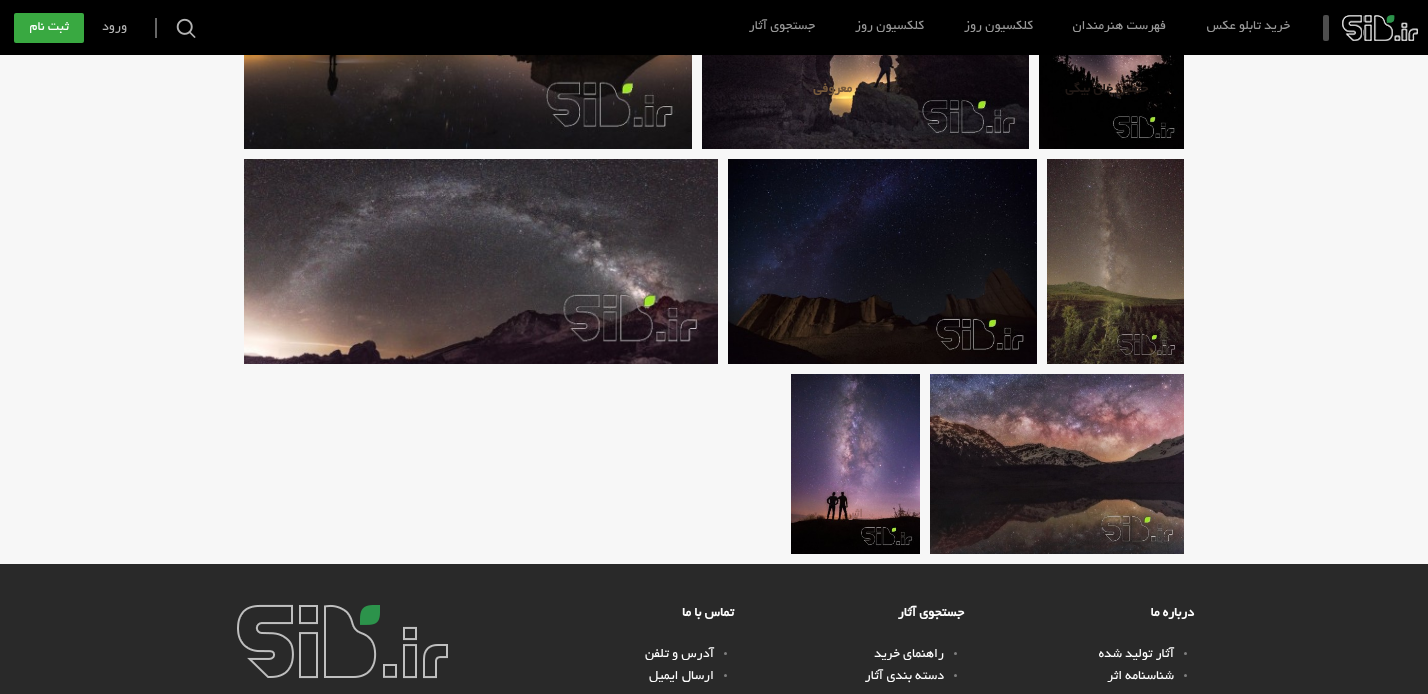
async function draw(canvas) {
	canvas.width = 1428;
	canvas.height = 694;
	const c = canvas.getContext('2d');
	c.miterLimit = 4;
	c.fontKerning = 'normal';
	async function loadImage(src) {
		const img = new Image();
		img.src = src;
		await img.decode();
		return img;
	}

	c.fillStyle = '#f7f7f7';
	c.fillRect(0, 0, 1428, 694);
	c.fillStyle = '#000';
	c.fillRect(0, 0, 1428, 55);
	c.drawImage(await loadImage('img1.png'), 1342, 15, 76, 26);
	c.fillStyle = '#4d4d4d';
	c.beginPath();
	c.roundRect(1323, 15, 6, 26, 2);
	c.fill();
	c.direction = 'rtl';
	c.font = '14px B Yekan';
	c.fillStyle = '#999';
	for (const [text, x, y] of [
		['خرید تابلو عکس', 1290, 29],
		['فهرست هنرمندان', 1166, 29],
		['کلکسیون روز', 1033, 29],
		['کلکسیون روز', 924, 29],
		['جستجوی آثار', 815, 29],
	]) {
		c.fillText(text, x, y);
	}
	c.drawImage(await loadImage('img2.png'), 176, 18, 20, 20);
	c.fillStyle = '#666';
	c.fillRect(155, 18, 2, 20);
	c.fillStyle = '#b3b3b3';
	c.fillText('ورود', 127, 30);
	c.fillStyle = '#39a941';
	c.beginPath();
	c.roundRect(14, 13, 70, 30, 2);
	c.fill();
	c.fillStyle = '#fff';
	c.fillText('ثبت نام', 69, 30);
	c.drawImage(await loadImage('img3.png'), 1039, 55, 145, 94);
	c.font = 'bold 14px B Yekan';
	c.fillStyle = '#211916';
	c.fillText('حسین خان بیگی', 1148, 92);
	c.drawImage(await loadImage('img4.png'), 702, 55, 327, 94);
	c.fillStyle = '#75593b';
	c.fillText('معروفی', 852, 92);
	c.drawImage(await loadImage('img5.png'), 244, 55, 448, 94);
	c.drawImage(await loadImage('img6.png'), 1047, 159, 137, 205);
	c.drawImage(await loadImage('img7.png'), 728, 159, 309, 205);
	c.drawImage(await loadImage('img8.png'), 244, 159, 474, 205);
	c.drawImage(await loadImage('img9.png'), 930, 374, 254, 180);
	c.drawImage(await loadImage('img10.png'), 791, 374, 129, 180);
	c.fillStyle = '#a06d6b';
	c.fillText('اثر', 863, 517);
	c.fillStyle = '#292929';
	c.fillRect(0, 564, 1428, 130);
	c.fillStyle = '#fff';
	c.fillText('درباره ما', 1194, 616);
	c.fillStyle = '#7f7f7f';
	c.beginPath();
	c.arc(1185.5, 653.5, 1.5, 0, 2 * Math.PI);
	c.fill();
	c.font = '14px B Yekan';
	c.fillStyle = '#fff';
	c.fillText('آثار تولید شده', 1174, 657);
	c.fillStyle = '#7f7f7f';
	c.beginPath();
	c.arc(1185.5, 675.5, 1.5, 0, 2 * Math.PI);
	c.fill();
	c.fillStyle = '#fff';
	c.fillText('شناسنامه اثر', 1174, 679);
	c.font = 'bold 14px B Yekan';
	c.fillText('جستجوی آثار', 964, 616);
	c.fillStyle = '#7f7f7f';
	c.beginPath();
	c.arc(955.5, 653.5, 1.5, 0, 2 * Math.PI);
	c.fill();
	c.font = '14px B Yekan';
	c.fillStyle = '#fff';
	c.fillText('راهنمای خرید', 944, 657);
	c.fillStyle = '#7f7f7f';
	c.beginPath();
	c.arc(955.5, 675.5, 1.5, 0, 2 * Math.PI);
	c.fill();
	c.fillStyle = '#fff';
	c.fillText('دسته بندی آثار', 944, 679);
	c.font = 'bold 14px B Yekan';
	c.fillText('تماس با ما', 734, 616);
	c.fillStyle = '#7f7f7f';
	c.beginPath();
	c.arc(725.5, 653.5, 1.5, 0, 2 * Math.PI);
	c.fill();
	c.font = '14px B Yekan';
	c.fillStyle = '#fff';
	c.fillText('آدرس و تلفن', 714, 657);
	c.fillStyle = '#7f7f7f';
	c.beginPath();
	c.arc(725.5, 675.5, 1.5, 0, 2 * Math.PI);
	c.fill();
	c.fillStyle = '#fff';
	c.fillText('ارسال ایمیل', 714, 679);
	c.drawImage(await loadImage('img11.png'), 237, 604, 211, 75);
}

draw(document.querySelector('canvas'));
